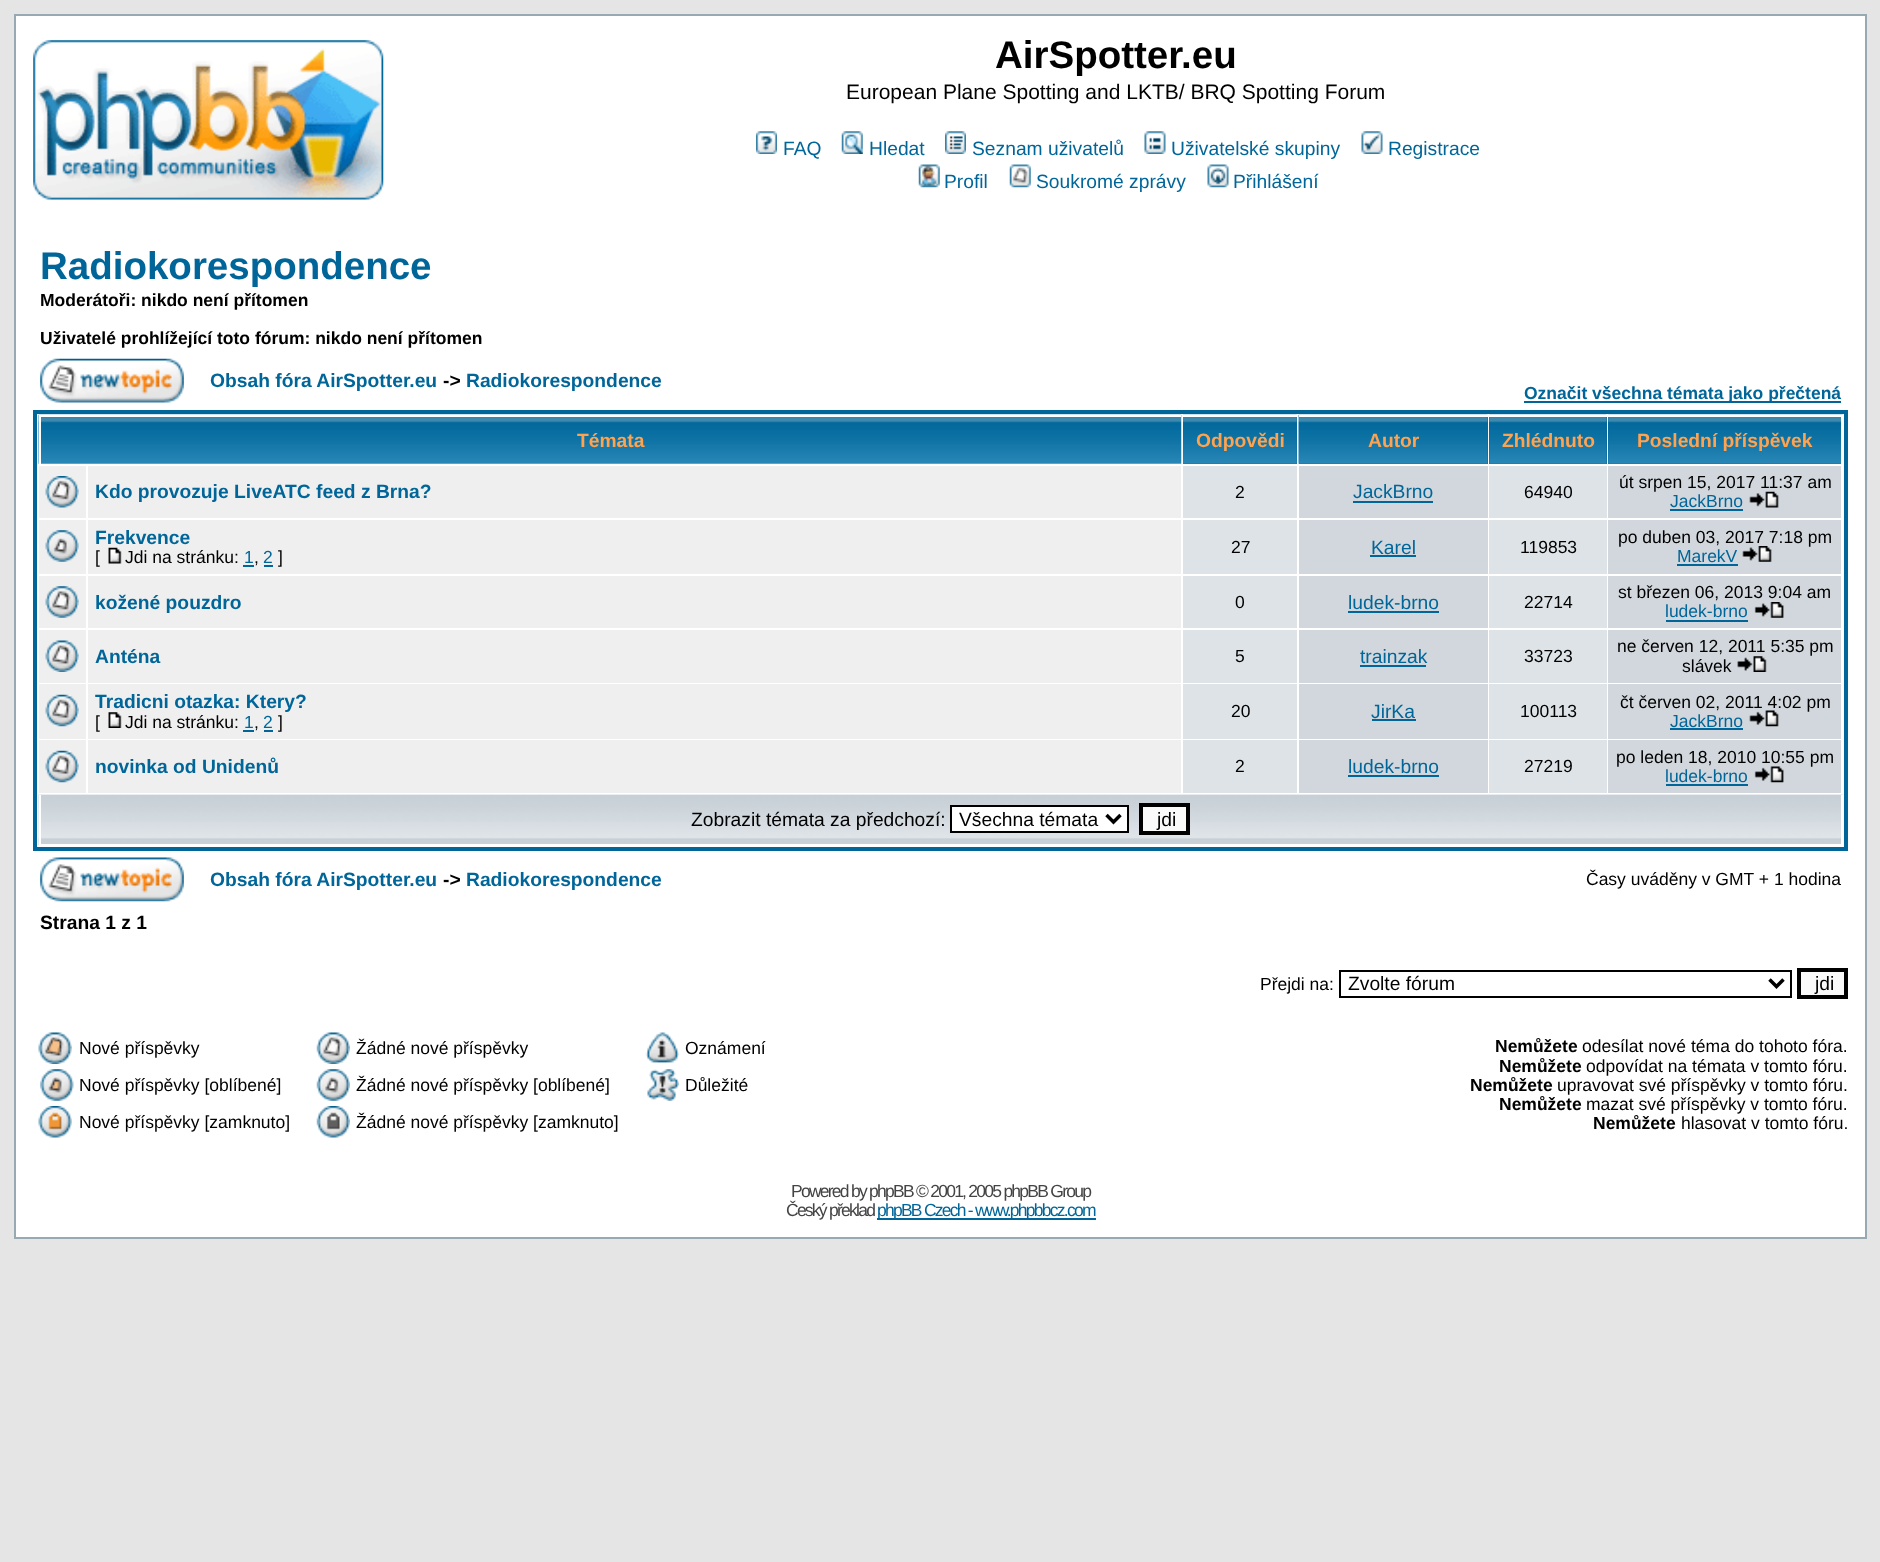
async function draw(canvas) {
	canvas.width = 1880;
	canvas.height = 1562;
	const c = canvas.getContext('2d');
	c.miterLimit = 4;
	c.fontKerning = 'normal';
	async function loadImage(src) {
		const img = new Image();
		img.src = src;
		await img.decode();
		return img;
	}

	c.fillStyle = '#e5e5e5';
	c.fillRect(0, 0, 1880, 1562);
	c.fillStyle = '#fff';
	c.beginPath();
	c.rect(15, 15, 1851, 1223);
	c.fill();
	c.strokeStyle = '#98aab1';
	c.lineWidth = 2;
	c.stroke();
	c.drawImage(await loadImage('img1.png'), 33, 40, 351, 160);
	c.font = 'bold 38.5px Liberation Sans';
	c.fillStyle = '#000';
	c.fillText('AirSpotter.eu', 995, 68);
	c.font = '21px Liberation Sans';
	c.fillText('European Plane Spotting and LKTB/ BRQ Spotting Forum', 846, 99);
	c.drawImage(await loadImage('img2.png'), 756, 131, 21, 23);
	c.font = '19.25px Liberation Sans';
	c.fillStyle = '#069';
	c.fillText('FAQ', 783, 155);
	c.drawImage(await loadImage('img3.png'), 841, 131, 22, 23);
	c.fillText('Hledat', 869, 155);
	c.drawImage(await loadImage('img4.png'), 945, 131, 21, 23);
	c.fillText('Seznam uživatelů', 972, 155);
	c.drawImage(await loadImage('img5.png'), 1144, 131, 22, 23);
	c.fillText('Uživatelské skupiny', 1171, 155);
	c.drawImage(await loadImage('img6.png'), 1361, 131, 22, 23);
	c.fillText('Registrace', 1388, 155);
	c.drawImage(await loadImage('img7.png'), 918, 164, 22, 24);
	c.fillText('Profil', 944, 188);
	c.drawImage(await loadImage('img8.png'), 1009, 164, 22, 24);
	c.fillText('Soukromé zprávy', 1036, 188);
	c.drawImage(await loadImage('img9.png'), 1207, 164, 22, 24);
	c.fillText('Přihlášení', 1233, 188);
	c.font = 'bold 38.5px Liberation Sans';
	c.fillText('Radiokorespondence', 40, 279);
	c.font = 'bold 17.5px Liberation Sans';
	c.fillStyle = '#000';
	c.fillText('Moderátoři: nikdo není přítomen', 40, 306);
	c.fillText('Uživatelé prohlížející toto fórum: nikdo není přítomen', 40, 344);
	c.drawImage(await loadImage('img10.png'), 40, 358, 144, 45);
	c.font = 'bold 19.25px Liberation Sans';
	c.fillStyle = '#069';
	c.fillText('Obsah fóra AirSpotter.eu', 210, 387);
	c.fillStyle = '#000';
	c.fillText('->', 443, 387);
	c.fillStyle = '#069';
	c.fillText('Radiokorespondence', 466, 387);
	c.fillRect(1524, 401, 317, 2);
	c.font = 'bold 17.5px Liberation Sans';
	c.fillText('Označit všechna témata jako přečtená', 1524, 399);
	c.strokeStyle = '#069';
	c.lineWidth = 4;
	c.strokeRect(35, 412, 1811, 437);
	c.drawImage(await loadImage('img11.png'), 38, 414, 1144, 50);
	c.fillStyle = '#fff';
	c.fillRect(39, 415, 1142, 2);
	c.fillRect(39, 415, 2, 49);
	c.font = 'bold 19.25px Liberation Sans';
	c.fillStyle = '#ffa34f';
	c.fillText('Témata', 577, 447);
	c.fillStyle = '#069';
	c.fillRect(1183, 417, 114, 47);
	c.drawImage(await loadImage('img12.png'), 1183, 414, 114, 50);
	c.fillStyle = '#fff';
	c.fillRect(1183, 415, 114, 2);
	c.fillStyle = '#ffa34f';
	c.fillText('Odpovědi', 1196, 447);
	c.fillStyle = '#069';
	c.fillRect(1299, 417, 189, 47);
	c.drawImage(await loadImage('img13.png'), 1298, 414, 190, 50);
	c.fillStyle = '#fff';
	c.fillRect(1299, 415, 189, 2);
	c.fillStyle = '#ffa34f';
	c.fillText('Autor', 1368, 447);
	c.fillStyle = '#069';
	c.fillRect(1489, 417, 118, 47);
	c.drawImage(await loadImage('img14.png'), 1489, 414, 118, 50);
	c.fillStyle = '#fff';
	c.fillRect(1489, 415, 118, 2);
	c.fillStyle = '#ffa34f';
	c.fillText('Zhlédnuto', 1502, 447);
	c.fillStyle = '#069';
	c.fillRect(1608, 417, 233, 47);
	c.drawImage(await loadImage('img15.png'), 1608, 414, 235, 50);
	c.fillStyle = '#fff';
	c.fillRect(1608, 415, 235, 2);
	c.fillRect(1841, 415, 2, 49);
	c.fillStyle = '#ffa34f';
	c.fillText('Poslední příspěvek', 1637, 447);
	c.fillStyle = '#efefef';
	c.fillRect(39, 466, 47, 52);
	c.drawImage(await loadImage('img16.png'), 45, 476, 34, 32);
	c.fillRect(88, 466, 1093, 52);
	c.fillStyle = '#069';
	c.fillText('Kdo provozuje LiveATC feed z Brna?', 95, 498);
	c.fillStyle = '#dee3e7';
	c.fillRect(1183, 466, 114, 52);
	c.font = '17.5px Liberation Sans';
	c.fillStyle = '#000';
	c.fillText('2', 1235, 498);
	c.fillStyle = '#d1d7dc';
	c.fillRect(1299, 466, 189, 52);
	c.font = '19.25px Liberation Sans';
	c.fillStyle = '#069';
	c.fillText('JackBrno', 1353, 498);
	c.fillRect(1353, 501, 80, 2);
	c.fillStyle = '#dee3e7';
	c.fillRect(1489, 466, 118, 52);
	c.font = '17.5px Liberation Sans';
	c.fillStyle = '#000';
	c.fillText('64940', 1524, 498);
	c.fillStyle = '#d1d7dc';
	c.fillRect(1608, 466, 233, 52);
	c.fillStyle = '#000';
	c.fillText('út srpen 15, 2017 11:37 am', 1619, 488);
	c.fillStyle = '#069';
	c.fillText('JackBrno', 1670, 507);
	c.fillRect(1670, 509, 73, 2);
	c.drawImage(await loadImage('img17.png'), 1749, 491, 30, 17);
	c.fillStyle = '#efefef';
	c.fillRect(39, 520, 47, 54);
	c.drawImage(await loadImage('img18.png'), 45, 530, 34, 32);
	c.fillRect(88, 520, 1093, 54);
	c.font = 'bold 19.25px Liberation Sans';
	c.fillStyle = '#069';
	c.fillText('Frekvence', 95, 544);
	c.font = '17.5px Liberation Sans';
	c.fillStyle = '#000';
	c.fillText('[', 95, 563);
	c.drawImage(await loadImage('img19.png'), 108, 547, 14, 17);
	c.fillText('Jdi na stránku:', 125, 563);
	c.fillStyle = '#069';
	c.fillText('1', 244, 563);
	c.fillStyle = '#000';
	c.fillText(',', 254, 563);
	c.fillStyle = '#069';
	c.fillRect(243, 565, 11, 2);
	c.fillRect(264, 565, 9, 2);
	c.fillText('2', 263, 563);
	c.fillStyle = '#000';
	c.fillText(']', 278, 563);
	c.fillStyle = '#dee3e7';
	c.fillRect(1183, 520, 114, 54);
	c.fillStyle = '#000';
	c.fillText('27', 1231, 553);
	c.fillStyle = '#d1d7dc';
	c.fillRect(1299, 520, 189, 54);
	c.font = '19.25px Liberation Sans';
	c.fillStyle = '#069';
	c.fillText('Karel', 1371, 554);
	c.fillRect(1370, 555, 46, 2);
	c.fillStyle = '#dee3e7';
	c.fillRect(1489, 520, 118, 54);
	c.font = '17.5px Liberation Sans';
	c.fillStyle = '#000';
	c.fillText('119853', 1520, 553);
	c.fillStyle = '#d1d7dc';
	c.fillRect(1608, 520, 233, 54);
	c.fillStyle = '#000';
	c.fillText('po duben 03, 2017 7:18 pm', 1618, 543);
	c.fillStyle = '#069';
	c.fillText('MarekV', 1677, 562);
	c.fillRect(1677, 564, 61, 2);
	c.drawImage(await loadImage('img20.png'), 1742, 546, 30, 16);
	c.fillStyle = '#efefef';
	c.fillRect(39, 576, 47, 52);
	c.drawImage(await loadImage('img21.png'), 45, 586, 34, 32);
	c.fillRect(88, 576, 1093, 52);
	c.font = 'bold 19.25px Liberation Sans';
	c.fillStyle = '#069';
	c.fillText('kožené pouzdro', 95, 609);
	c.fillStyle = '#dee3e7';
	c.fillRect(1183, 576, 114, 52);
	c.font = '17.5px Liberation Sans';
	c.fillStyle = '#000';
	c.fillText('0', 1235, 608);
	c.fillStyle = '#d1d7dc';
	c.fillRect(1299, 576, 189, 52);
	c.font = '19.25px Liberation Sans';
	c.fillStyle = '#069';
	c.fillText('ludek-brno', 1348, 609);
	c.fillRect(1348, 611, 91, 2);
	c.fillStyle = '#dee3e7';
	c.fillRect(1489, 576, 118, 52);
	c.font = '17.5px Liberation Sans';
	c.fillStyle = '#000';
	c.fillText('22714', 1524, 608);
	c.fillStyle = '#d1d7dc';
	c.fillRect(1608, 576, 233, 52);
	c.fillStyle = '#000';
	c.fillText('st březen 06, 2013 9:04 am', 1618, 598);
	c.fillStyle = '#069';
	c.fillText('ludek-brno', 1665, 617);
	c.fillRect(1666, 620, 82, 2);
	c.drawImage(await loadImage('img22.png'), 1754, 602, 30, 16);
	c.fillStyle = '#efefef';
	c.fillRect(39, 630, 47, 53);
	c.drawImage(await loadImage('img23.png'), 45, 640, 34, 32);
	c.fillRect(88, 630, 1093, 53);
	c.font = 'bold 19.25px Liberation Sans';
	c.fillStyle = '#069';
	c.fillText('Anténa', 95, 663);
	c.fillStyle = '#dee3e7';
	c.fillRect(1183, 630, 114, 53);
	c.font = '17.5px Liberation Sans';
	c.fillStyle = '#000';
	c.fillText('5', 1235, 662);
	c.fillStyle = '#d1d7dc';
	c.fillRect(1299, 630, 189, 53);
	c.font = '19.25px Liberation Sans';
	c.fillStyle = '#069';
	c.fillText('trainzak', 1360, 663);
	c.fillRect(1360, 665, 66, 2);
	c.fillStyle = '#dee3e7';
	c.fillRect(1489, 630, 118, 53);
	c.font = '17.5px Liberation Sans';
	c.fillStyle = '#000';
	c.fillText('33723', 1524, 662);
	c.fillStyle = '#d1d7dc';
	c.fillRect(1608, 630, 233, 53);
	c.fillStyle = '#000';
	c.fillText('ne červen 12, 2011 5:35 pm', 1617, 652);
	c.fillText('slávek', 1682, 672);
	c.drawImage(await loadImage('img24.png'), 1737, 656, 30, 16);
	c.fillStyle = '#efefef';
	c.fillRect(39, 684, 47, 55);
	c.drawImage(await loadImage('img25.png'), 45, 694, 34, 33);
	c.fillRect(88, 684, 1093, 55);
	c.font = 'bold 19.25px Liberation Sans';
	c.fillStyle = '#069';
	c.fillText('Tradicni otazka: Ktery?', 95, 708);
	c.font = '17.5px Liberation Sans';
	c.fillStyle = '#000';
	c.fillText('[', 95, 728);
	c.drawImage(await loadImage('img26.png'), 108, 712, 14, 16);
	c.fillText('Jdi na stránku:', 125, 728);
	c.fillStyle = '#069';
	c.fillText('1', 244, 728);
	c.fillStyle = '#000';
	c.fillText(',', 254, 728);
	c.fillStyle = '#069';
	c.fillRect(243, 730, 11, 2);
	c.fillRect(264, 730, 9, 2);
	c.fillText('2', 263, 728);
	c.fillStyle = '#000';
	c.fillText(']', 278, 728);
	c.fillStyle = '#dee3e7';
	c.fillRect(1183, 684, 114, 55);
	c.fillStyle = '#000';
	c.fillText('20', 1231, 717);
	c.fillStyle = '#d1d7dc';
	c.fillRect(1299, 684, 189, 55);
	c.font = '19.25px Liberation Sans';
	c.fillStyle = '#069';
	c.fillText('JirKa', 1371, 718);
	c.fillRect(1372, 719, 44, 2);
	c.fillStyle = '#dee3e7';
	c.fillRect(1489, 684, 118, 55);
	c.font = '17.5px Liberation Sans';
	c.fillStyle = '#000';
	c.fillText('100113', 1520, 717);
	c.fillStyle = '#d1d7dc';
	c.fillRect(1608, 684, 233, 55);
	c.fillStyle = '#000';
	c.fillText('čt červen 02, 2011 4:02 pm', 1620, 708);
	c.fillStyle = '#069';
	c.fillText('JackBrno', 1670, 727);
	c.fillRect(1670, 728, 73, 2);
	c.drawImage(await loadImage('img27.png'), 1749, 710, 30, 17);
	c.fillStyle = '#efefef';
	c.fillRect(39, 740, 47, 53);
	c.drawImage(await loadImage('img25.png'), 45, 750, 34, 33);
	c.fillRect(88, 740, 1093, 53);
	c.font = 'bold 19.25px Liberation Sans';
	c.fillStyle = '#069';
	c.fillText('novinka od Unidenů', 95, 773);
	c.fillStyle = '#dee3e7';
	c.fillRect(1183, 740, 114, 53);
	c.font = '17.5px Liberation Sans';
	c.fillStyle = '#000';
	c.fillText('2', 1235, 772);
	c.fillStyle = '#d1d7dc';
	c.fillRect(1299, 740, 189, 53);
	c.font = '19.25px Liberation Sans';
	c.fillStyle = '#069';
	c.fillText('ludek-brno', 1348, 773);
	c.fillRect(1348, 775, 91, 2);
	c.fillStyle = '#dee3e7';
	c.fillRect(1489, 740, 118, 53);
	c.font = '17.5px Liberation Sans';
	c.fillStyle = '#000';
	c.fillText('27219', 1524, 772);
	c.fillStyle = '#d1d7dc';
	c.fillRect(1608, 740, 233, 53);
	c.fillStyle = '#000';
	c.fillText('po leden 18, 2010 10:55 pm', 1616, 763);
	c.fillStyle = '#069';
	c.fillText('ludek-brno', 1665, 782);
	c.fillRect(1666, 784, 82, 2);
	c.drawImage(await loadImage('img28.png'), 1754, 766, 30, 17);
	c.drawImage(await loadImage('img29.png'), 38, 794, 1805, 52);
	for (const [x, y, w, h, color] of [
		[1841, 795, 2, 50, '#fff'],
		[39, 844, 1804, 2, '#fff'],
		[39, 795, 2, 50, '#fff'],
	]) {
		c.fillStyle = color;
		c.fillRect(x, y, w, h);
	}
	c.font = '19.25px Liberation Sans';
	c.fillStyle = '#000';
	c.fillText('Zobrazit témata za předchozí:', 691, 826);
	c.fillStyle = '#fff';
	c.beginPath();
	c.rect(951, 806, 177, 26);
	c.fill();
	c.strokeStyle = '#000';
	c.lineWidth = 2;
	c.stroke();
	c.beginPath();
	c.moveTo(1106.5, 815);
	c.lineTo(1113.5, 822);
	c.lineTo(1120.5, 815);
	c.lineWidth = 3.5;
	c.stroke();
	c.fillStyle = '#000';
	c.fillText('Všechna témata', 959, 826);
	c.fillStyle = '#fafafa';
	c.beginPath();
	c.rect(1141, 805, 47, 28);
	c.fill();
	c.lineWidth = 4;
	c.stroke();
	c.fillStyle = '#000';
	c.fillText('jdi', 1157, 826);
	c.drawImage(await loadImage('img30.png'), 40, 857, 144, 45);
	c.font = 'bold 19.25px Liberation Sans';
	c.fillStyle = '#069';
	c.fillText('Obsah fóra AirSpotter.eu', 210, 886);
	c.fillStyle = '#000';
	c.fillText('->', 443, 886);
	c.fillStyle = '#069';
	c.fillText('Radiokorespondence', 466, 886);
	c.font = '17.5px Liberation Sans';
	c.fillStyle = '#000';
	c.fillText('Časy uváděny v GMT + 1 hodina', 1586, 885);
	c.font = 'bold 19.25px Liberation Sans';
	c.fillText('Strana 1 z 1', 40, 929);
	c.font = '17.5px Liberation Sans';
	c.fillText('Přejdi na:', 1260, 990);
	c.lineWidth = 2;
	c.strokeRect(1340, 971, 451, 26);
	c.beginPath();
	c.moveTo(1769.5, 979.5);
	c.lineTo(1776.5, 986.5);
	c.lineTo(1783.5, 979.5);
	c.lineWidth = 3.5;
	c.stroke();
	c.font = '19.25px Liberation Sans';
	c.fillText('Zvolte fórum', 1348, 990);
	c.fillStyle = '#fafafa';
	c.beginPath();
	c.rect(1799, 970, 47, 27);
	c.fill();
	c.lineWidth = 4;
	c.stroke();
	c.fillStyle = '#000';
	c.fillText('jdi', 1815, 990);
	c.drawImage(await loadImage('img31.png'), 38, 1032, 34, 32);
	c.font = '17.5px Liberation Sans';
	c.fillText('Nové příspěvky', 79, 1054);
	c.drawImage(await loadImage('img32.png'), 316, 1032, 34, 32);
	c.fillText('Žádné nové příspěvky', 356, 1054);
	c.drawImage(await loadImage('img33.png'), 645, 1032, 34, 31);
	c.fillText('Oznámení', 685, 1054);
	c.drawImage(await loadImage('img34.png'), 40, 1069, 34, 32);
	c.fillText('Nové příspěvky [oblíbené]', 79, 1091);
	c.drawImage(await loadImage('img35.png'), 316, 1069, 34, 32);
	c.fillText('Žádné nové příspěvky [oblíbené]', 356, 1091);
	c.drawImage(await loadImage('img36.png'), 647, 1069, 32, 32);
	c.fillText('Důležité', 685, 1091);
	c.drawImage(await loadImage('img37.png'), 38, 1106, 34, 32);
	c.fillText('Nové příspěvky [zamknuto]', 79, 1128);
	c.drawImage(await loadImage('img38.png'), 316, 1106, 34, 32);
	c.fillText('Žádné nové příspěvky [zamknuto]', 356, 1128);
	c.font = 'bold 17.5px Liberation Sans';
	c.fillText('Nemůžete', 1495, 1052);
	c.font = '17.5px Liberation Sans';
	c.fillText('odesílat nové téma do tohoto fóra.', 1582, 1052);
	c.font = 'bold 17.5px Liberation Sans';
	c.fillText('Nemůžete', 1499, 1072);
	c.font = '17.5px Liberation Sans';
	c.fillText('odpovídat na témata v tomto fóru.', 1586, 1072);
	c.font = 'bold 17.5px Liberation Sans';
	c.fillText('Nemůžete', 1470, 1091);
	c.font = '17.5px Liberation Sans';
	c.fillText('upravovat své příspěvky v tomto fóru.', 1557, 1091);
	c.font = 'bold 17.5px Liberation Sans';
	c.fillText('Nemůžete', 1499, 1110);
	c.font = '17.5px Liberation Sans';
	c.fillText('mazat své příspěvky v tomto fóru.', 1586, 1110);
	c.font = 'bold 17.5px Liberation Sans';
	c.fillText('Nemůžete', 1593, 1129);
	c.font = '17.5px Liberation Sans';
	c.fillText('hlasovat v tomto fóru.', 1681, 1129);
	c.letterSpacing = '-1.75px';
	c.fillStyle = '#444';
	c.fillText('Powered by phpBB © 2001, 2005 phpBB Group', 791, 1197);
	c.fillText('Český překlad', 786, 1216);
	c.fillStyle = '#069';
	c.fillRect(877, 1218, 219, 2);
	c.fillText('phpBB Czech - www.phpbbcz.com', 877, 1216);
}

draw(document.querySelector('canvas'));
